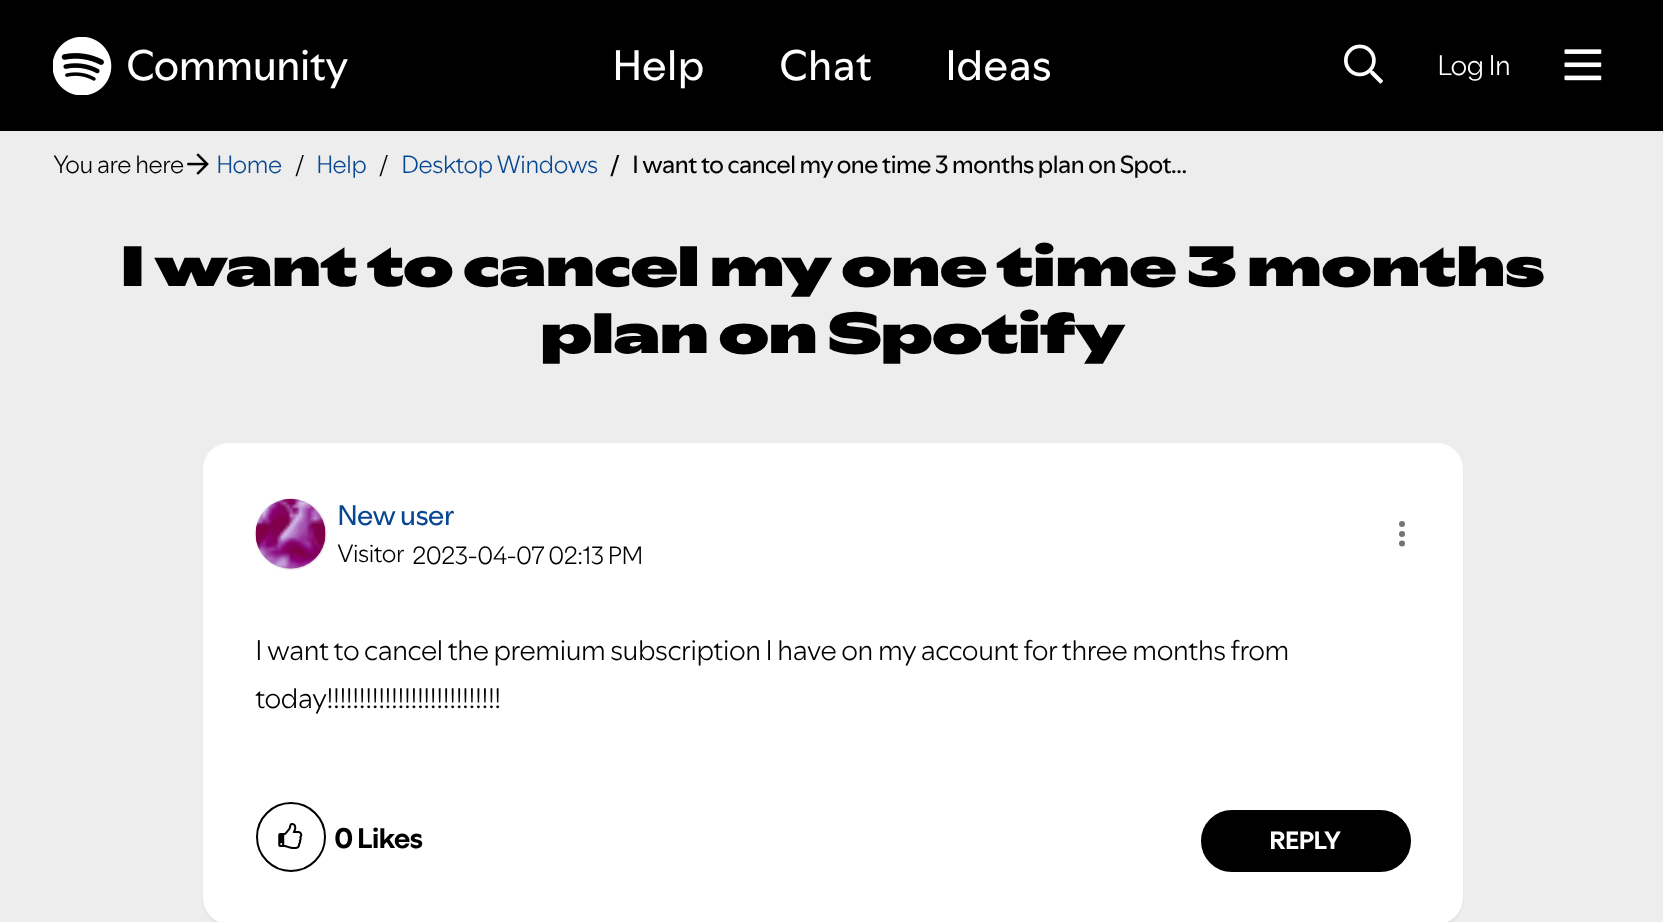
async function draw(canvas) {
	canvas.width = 1663;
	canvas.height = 922;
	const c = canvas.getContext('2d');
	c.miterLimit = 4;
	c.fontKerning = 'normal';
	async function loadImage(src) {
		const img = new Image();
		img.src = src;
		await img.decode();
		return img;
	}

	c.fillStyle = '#ededed';
	c.fillRect(0, 0, 1663, 922);
	c.fillStyle = '#000';
	c.fillRect(0, 0, 1663, 131);
	c.drawImage(await loadImage('img1.png'), 53, 37, 59, 58);
	c.letterSpacing = '-0.88px';
	c.font = '42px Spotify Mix';
	c.fillStyle = '#fff';
	c.fillText('Community', 126, 80);
	c.letterSpacing = '0px';
	for (const [text, x, y] of [
		['Help', 612, 80],
		['Chat', 779, 80],
		['Ideas', 945, 80],
	]) {
		c.fillText(text, x, y);
	}
	c.drawImage(await loadImage('img2.png'), 1344, 44, 39, 40);
	c.letterSpacing = '-0.88px';
	c.font = '300 28px Spotify Mix';
	c.fillText('Log In', 1437, 75);
	c.drawImage(await loadImage('img3.png'), 1564, 49, 38, 32);
	c.font = '300 24.5px Spotify Mix';
	c.fillStyle = '#000';
	c.fillText('You are here', 53, 173);
	c.drawImage(await loadImage('img4.png'), 187, 153, 22, 22);
	c.fillStyle = '#084791';
	c.fillText('Home', 216, 173);
	c.fillStyle = '#000';
	c.fillText('/', 295, 173);
	c.fillStyle = '#084791';
	c.fillText('Help', 316, 173);
	c.fillStyle = '#000';
	c.fillText('/', 379, 173);
	c.fillStyle = '#084791';
	c.fillText('Desktop Windows', 401, 173);
	c.font = '24.5px Spotify Mix';
	c.fillStyle = '#000';
	c.fillText('/', 610, 173);
	c.fillText('I want to cancel my one time 3 months plan on Spot...', 632, 173);
	c.font = '900 56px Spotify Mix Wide';
	c.fillText('I want to cancel my one time 3 months', 120, 286);
	c.fillText('plan on Spotify', 540, 353);
	c.fillStyle = '#0000000d';
	c.filter = 'blur(1px)';
	c.beginPath();
	c.roundRect(203, 445, 1260, 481, 26);
	c.fill();
	c.filter = 'none';
	c.fillStyle = '#fff';
	c.beginPath();
	c.roundRect(203, 443, 1260, 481, 26);
	c.fill();
	c.fillStyle = '#c4c4c4';
	c.filter = 'blur(1px)';
	c.beginPath();
	c.roundRect(256, 499, 70, 70, 35);
	c.fill();
	c.filter = 'none';
	c.drawImage(await loadImage('img5.png'), 255, 498, 71, 71);
	c.font = '28px Spotify Mix';
	c.fillStyle = '#084791';
	c.fillText('New user', 337, 525);
	c.font = '300 24.5px Spotify Mix';
	c.fillStyle = '#000';
	for (const [text, x, y] of [
		['Visitor', 337, 562],
		['2023-04-07', 412, 564],
		['02:13 PM', 548, 564],
	]) {
		c.fillText(text, x, y);
	}
	c.fillStyle = '#747474';
	c.beginPath();
	c.arc(1402, 524, 3, 0, 2 * Math.PI);
	c.fill();
	c.beginPath();
	c.arc(1402, 534, 3, 0, 2 * Math.PI);
	c.fill();
	c.beginPath();
	c.arc(1402, 543.5, 3, 0, 2 * Math.PI);
	c.fill();
	c.font = '300 28px Spotify Mix';
	c.fillStyle = '#000';
	c.fillText('I want to cancel the premium subscription I have on my account for three months from', 255, 660);
	c.fillText('today!!!!!!!!!!!!!!!!!!!!!!!!!!!', 255, 708);
	c.beginPath();
	c.arc(291, 837, 34, 0, 2 * Math.PI);
	c.strokeStyle = '#000';
	c.lineWidth = 2;
	c.stroke();
	c.drawImage(await loadImage('img6.png'), 278, 823, 25, 26);
	c.font = 'bold 28px Spotify Mix';
	c.fillText('0 Likes', 334, 848);
	c.beginPath();
	c.roundRect(1202, 811, 208, 60, 30);
	c.fill();
	c.stroke();
	c.font = 'bold 24.5px Spotify Mix';
	c.fillStyle = '#fff';
	c.fillText('REPLY', 1269, 849);
}

draw(document.querySelector('canvas'));
